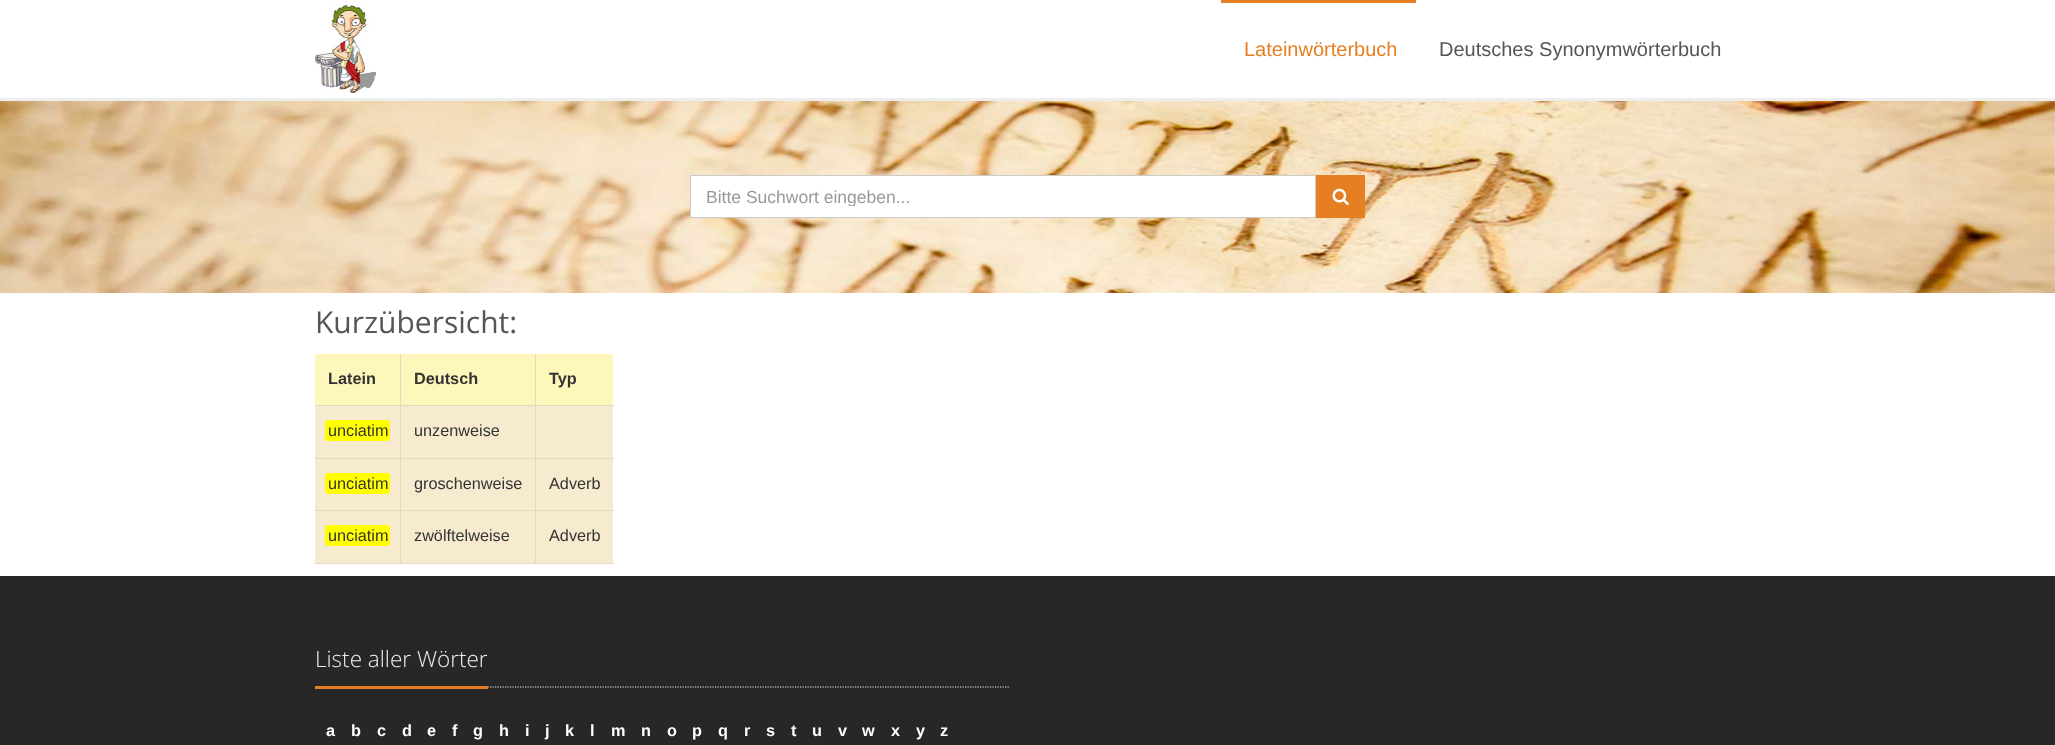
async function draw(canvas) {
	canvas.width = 2055;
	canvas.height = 745;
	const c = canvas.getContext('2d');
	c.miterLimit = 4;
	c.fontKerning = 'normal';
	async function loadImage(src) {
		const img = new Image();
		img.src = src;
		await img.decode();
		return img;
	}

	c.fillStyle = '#fff';
	c.fillRect(0, 0, 2055, 745);
	c.fillStyle = '#eee';
	c.fillRect(0, 98, 2055, 3);
	c.drawImage(await loadImage('img1.png'), 315, 5, 61, 88);
	c.fillStyle = '#e67e22';
	c.fillRect(1221, 0, 195, 3);
	c.font = '20px Liberation Sans';
	c.fillText('Lateinwörterbuch', 1244, 56);
	c.fillStyle = '#555';
	c.fillText('Deutsches Synonymwörterbuch', 1439, 56);
	c.drawImage(await loadImage('img2.png'), 0, 101, 2055, 192);
	c.fillStyle = '#fff';
	c.beginPath();
	c.roundRect(690, 175, 626, 43, [5, 0, 0, 5]);
	c.fill();
	c.strokeStyle = '#ccc';
	c.strokeRect(690.5, 175.5, 625, 42);
	c.save();
	c.beginPath();
	c.rect(706, 186, 594, 20);
	c.clip();
	c.font = '17.5px Liberation Sans';
	c.fillStyle = '#999';
	c.fillText('Bitte Suchwort eingeben...', 706, 203);
	c.restore();
	c.fillStyle = '#e67e22';
	c.fillRect(1316, 175, 49, 43);
	c.drawImage(await loadImage('img3.png'), 1332, 188, 17, 17);
	c.font = '30px Open Sans';
	c.fillStyle = '#555';
	c.fillText('Kurzübersicht:', 315, 333);
	for (const [x, y, w, h, color] of [
		[315, 354, 85, 51, '#fef7bb'],
		[535, 563, 79, 1, '#e4d9be'],
		[535, 510, 1, 54, '#e4d9be'],
		[535, 510, 79, 1, '#e4d9be'],
		[535, 458, 1, 53, '#e4d9be'],
		[535, 458, 79, 1, '#e4d9be'],
		[535, 405, 1, 54, '#e4d9be'],
		[535, 405, 79, 1, '#e4d9be'],
		[535, 354, 1, 52, '#e4d9be'],
		[400, 563, 136, 1, '#e4d9be'],
		[400, 510, 1, 54, '#e4d9be'],
		[400, 510, 136, 1, '#e4d9be'],
		[400, 458, 1, 53, '#e4d9be'],
		[400, 458, 136, 1, '#e4d9be'],
		[400, 405, 1, 54, '#e4d9be'],
		[400, 405, 136, 1, '#e4d9be'],
		[400, 354, 1, 52, '#e4d9be'],
		[315, 405, 86, 1, '#e4d9be'],
	]) {
		c.fillStyle = color;
		c.fillRect(x, y, w, h);
	}
	c.font = 'bold 16.25px Liberation Sans';
	c.fillStyle = '#333';
	c.fillText('Latein', 328, 384);
	c.fillStyle = '#fef7bb';
	c.fillRect(401, 354, 134, 51);
	c.fillStyle = '#333';
	c.fillText('Deutsch', 414, 384);
	c.fillStyle = '#fef7bb';
	c.fillRect(536, 354, 77, 51);
	c.fillStyle = '#333';
	c.fillText('Typ', 549, 384);
	c.fillStyle = '#f6ebcf';
	c.fillRect(315, 406, 85, 52);
	c.fillStyle = '#e4d9be';
	c.fillRect(315, 458, 86, 1);
	c.fillStyle = '#ff0';
	c.beginPath();
	c.roundRect(325.5, 420.5, 64, 20, 2);
	c.fill();
	c.strokeStyle = '#ff0';
	c.stroke();
	c.font = '16.25px Liberation Sans';
	c.fillStyle = '#333';
	c.fillText('unciatim', 328, 436);
	c.fillStyle = '#f6ebcf';
	c.fillRect(401, 406, 134, 52);
	c.fillStyle = '#333';
	c.fillText('unzenweise', 414, 436);
	for (const [x, y, w, h, color] of [
		[536, 406, 77, 52, '#f6ebcf'],
		[315, 459, 85, 51, '#f6ebcf'],
		[315, 510, 86, 1, '#e4d9be'],
	]) {
		c.fillStyle = color;
		c.fillRect(x, y, w, h);
	}
	c.fillStyle = '#ff0';
	c.beginPath();
	c.roundRect(325.5, 473.5, 64, 20, 2);
	c.fill();
	c.stroke();
	c.fillStyle = '#333';
	c.fillText('unciatim', 328, 489);
	c.fillStyle = '#f6ebcf';
	c.fillRect(401, 459, 134, 51);
	c.fillStyle = '#333';
	c.fillText('groschenweise', 414, 489);
	c.fillStyle = '#f6ebcf';
	c.fillRect(536, 459, 77, 51);
	c.fillStyle = '#333';
	c.fillText('Adverb', 549, 489);
	c.fillStyle = '#f6ebcf';
	c.fillRect(315, 511, 85, 52);
	c.fillStyle = '#e4d9be';
	c.fillRect(315, 563, 86, 1);
	c.fillStyle = '#ff0';
	c.beginPath();
	c.roundRect(325.5, 525.5, 64, 20, 2);
	c.fill();
	c.stroke();
	c.fillStyle = '#333';
	c.fillText('unciatim', 328, 541);
	c.fillStyle = '#f6ebcf';
	c.fillRect(401, 511, 134, 52);
	c.fillStyle = '#333';
	c.fillText('zwölftelweise', 414, 541);
	c.fillStyle = '#f6ebcf';
	c.fillRect(536, 511, 77, 52);
	c.fillStyle = '#333';
	c.fillText('Adverb', 549, 541);
	c.fillStyle = '#272727';
	c.fillRect(0, 576, 2055, 169);
	c.beginPath();
	c.moveTo(315, 687);
	c.lineTo(1009, 687);
	c.strokeStyle = '#e4e9f0';
	c.lineWidth = 1.2;
	c.setLineDash([1.25, 1.25]);
	c.stroke();
	c.fillStyle = '#e67e22';
	c.fillRect(315, 686, 173, 3);
	c.font = '300 22.5px Open Sans';
	c.fillStyle = '#eee';
	c.fillText('Liste aller Wörter', 315, 667);
	c.font = 'bold 16.25px Liberation Sans';
	c.fillStyle = '#fff';
	for (const [text, x, y] of [
		['a', 326, 736],
		['b', 351, 736],
		['c', 377, 736],
		['d', 402, 736],
		['e', 427, 736],
		['f', 452, 736],
		['g', 473, 736],
		['h', 499, 736],
		['i', 525, 736],
		['j', 545, 736],
		['k', 565, 736],
		['l', 590, 736],
		['m', 611, 736],
		['n', 641, 736],
		['o', 667, 736],
		['p', 692, 736],
		['q', 718, 736],
		['r', 744, 736],
		['s', 766, 736],
		['t', 791, 736],
		['u', 812, 736],
		['v', 838, 736],
		['w', 862, 736],
		['x', 891, 736],
		['y', 916, 736],
		['z', 940, 736],
	]) {
		c.fillText(text, x, y);
	}
}

draw(document.querySelector('canvas'));
